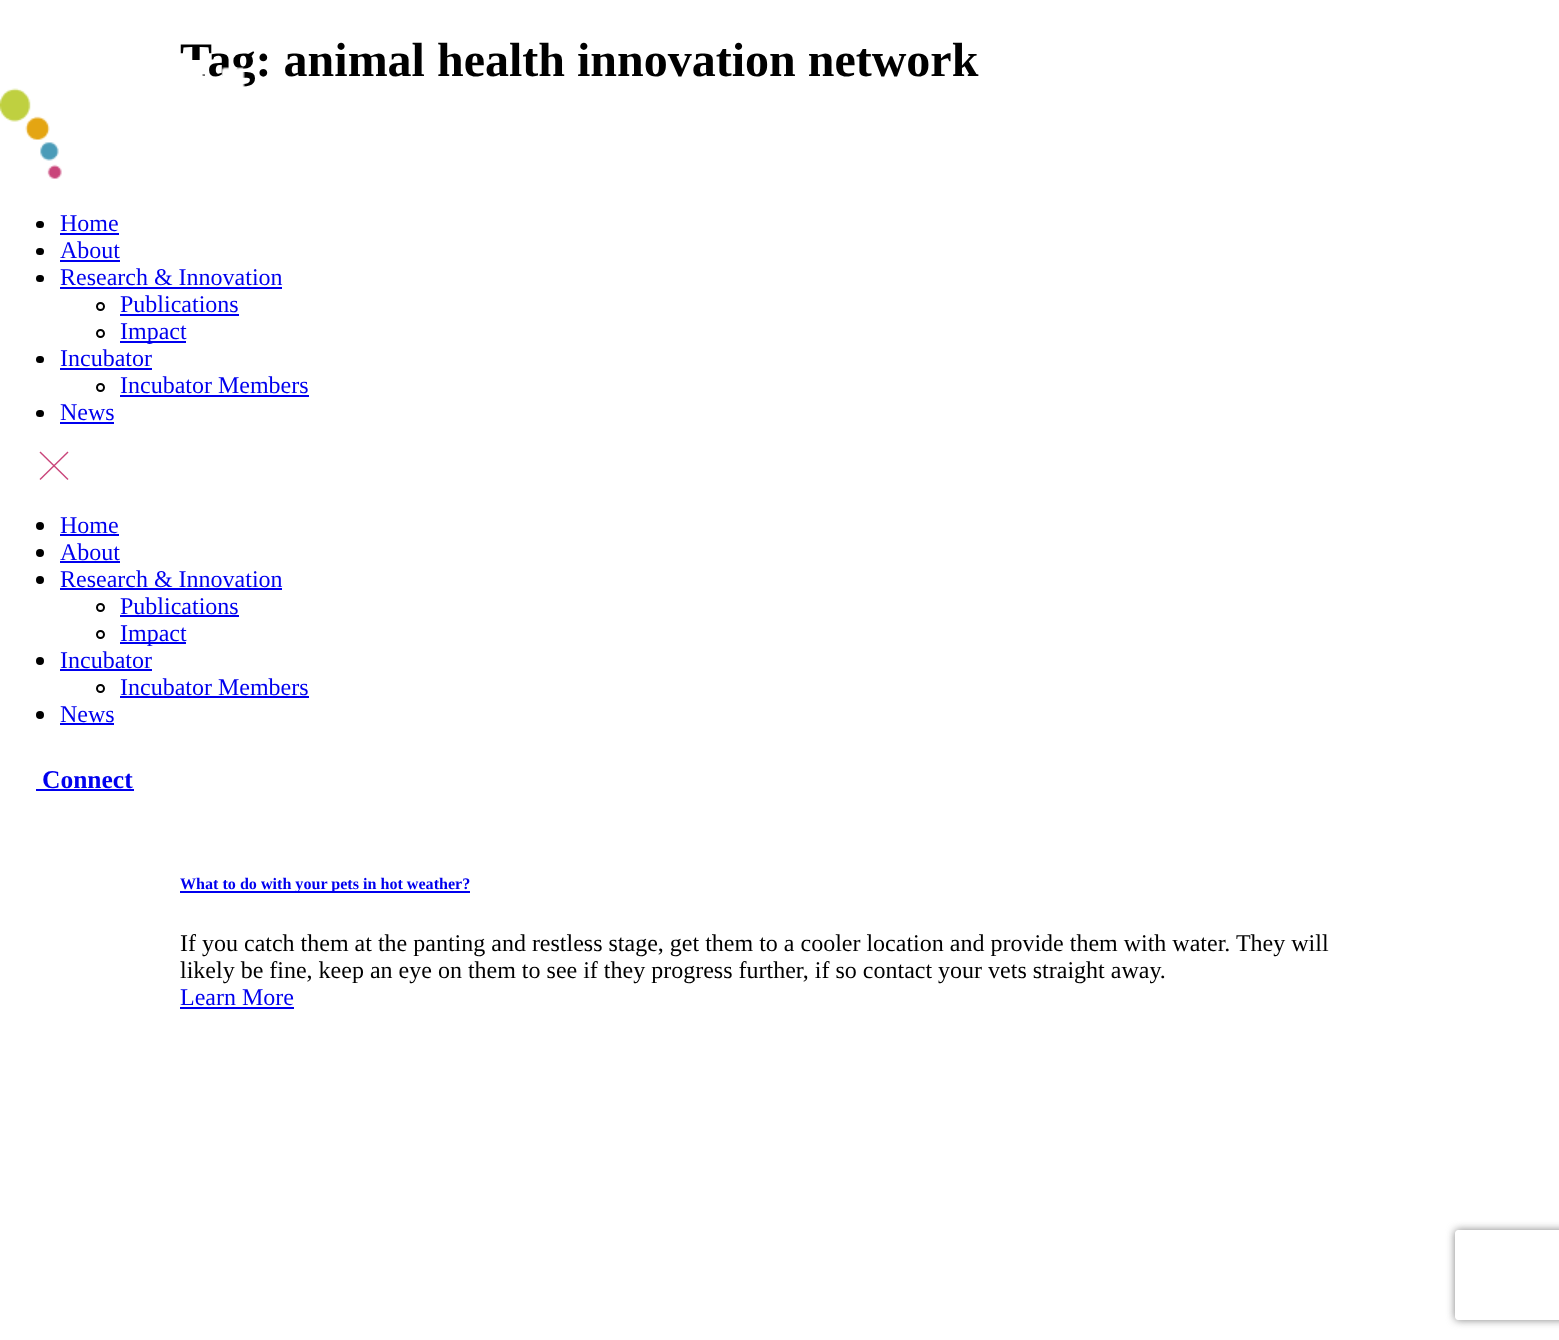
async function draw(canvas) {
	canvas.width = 1559;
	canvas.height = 1340;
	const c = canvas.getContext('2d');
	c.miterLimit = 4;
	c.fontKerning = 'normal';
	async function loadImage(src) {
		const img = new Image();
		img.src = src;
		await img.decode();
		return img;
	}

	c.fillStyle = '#fff';
	c.fillRect(0, 0, 1559, 1340);
	c.font = 'bold 48px Liberation Serif';
	c.fillStyle = '#000';
	c.fillText('Tag: animal health innovation network', 180, 76);
	c.drawImage(await loadImage('img1.png'), 0, 60, 245, 119);
	c.beginPath();
	c.roundRect(36, 221, 8, 7, 3.5);
	c.fill();
	c.font = '24px Liberation Serif';
	c.fillStyle = '#00e';
	c.fillText('Home', 60, 231);
	c.fillRect(60, 233, 59, 2);
	c.fillStyle = '#000';
	c.beginPath();
	c.roundRect(36, 248, 8, 7, 3.5);
	c.fill();
	c.fillStyle = '#00e';
	c.fillText('About', 60, 258);
	c.fillRect(60, 260, 60, 2);
	c.fillStyle = '#000';
	c.beginPath();
	c.roundRect(36, 275, 8, 7, 3.5);
	c.fill();
	c.fillStyle = '#00e';
	c.fillText('Research & Innovation', 60, 285);
	c.fillRect(60, 287, 222, 2);
	c.beginPath();
	c.arc(100.5, 306.5, 3.5, 0, 2 * Math.PI);
	c.strokeStyle = '#000';
	c.lineWidth = 2;
	c.stroke();
	c.fillText('Publications', 120, 312);
	c.fillRect(120, 314, 119, 2);
	c.beginPath();
	c.arc(100.5, 333.5, 3.5, 0, 2 * Math.PI);
	c.stroke();
	c.fillRect(120, 341, 66, 2);
	c.fillText('Impact', 120, 339);
	c.fillStyle = '#000';
	c.beginPath();
	c.roundRect(36, 356, 8, 7, 3.5);
	c.fill();
	c.fillStyle = '#00e';
	c.fillText('Incubator', 60, 366);
	c.fillRect(60, 368, 92, 2);
	c.beginPath();
	c.arc(100.5, 387.5, 3.5, 0, 2 * Math.PI);
	c.stroke();
	c.fillText('Incubator Members', 120, 393);
	c.fillRect(120, 395, 189, 2);
	c.fillStyle = '#000';
	c.beginPath();
	c.roundRect(36, 410, 8, 7, 3.5);
	c.fill();
	c.fillStyle = '#00e';
	c.fillText('News', 60, 420);
	c.fillRect(60, 422, 54, 2);
	c.fillStyle = '#c9457a';
	c.beginPath();
	c.moveTo(39.5, 479);
	c.lineTo(67.5, 451.5);
	c.lineTo(68.5, 452.5);
	c.lineTo(40.5, 480);
	c.closePath();
	c.fill();
	c.beginPath();
	c.moveTo(68.5, 479);
	c.lineTo(40.5, 451.5);
	c.lineTo(39.5, 452.5);
	c.lineTo(67.5, 480);
	c.closePath();
	c.fill();
	c.fillStyle = '#000';
	c.beginPath();
	c.arc(40, 526, 4, 0, 2 * Math.PI);
	c.fill();
	c.fillStyle = '#00e';
	c.fillText('Home', 60, 533);
	c.fillRect(60, 534, 59, 2);
	c.fillStyle = '#000';
	c.beginPath();
	c.arc(40, 553, 4, 0, 2 * Math.PI);
	c.fill();
	c.fillStyle = '#00e';
	c.fillText('About', 60, 560);
	c.fillRect(60, 561, 60, 2);
	c.fillStyle = '#000';
	c.beginPath();
	c.arc(40, 580, 4, 0, 2 * Math.PI);
	c.fill();
	c.fillStyle = '#00e';
	c.fillText('Research & Innovation', 60, 587);
	c.fillRect(60, 588, 222, 2);
	c.beginPath();
	c.arc(100.5, 607.5, 3.5, 0, 2 * Math.PI);
	c.stroke();
	c.fillText('Publications', 120, 614);
	c.fillRect(120, 615, 119, 2);
	c.beginPath();
	c.arc(100.5, 634.5, 3.5, 0, 2 * Math.PI);
	c.stroke();
	c.fillRect(120, 642, 66, 2);
	c.fillText('Impact', 120, 641);
	c.fillStyle = '#000';
	c.beginPath();
	c.arc(40, 661, 4, 0, 2 * Math.PI);
	c.fill();
	c.fillStyle = '#00e';
	c.fillText('Incubator', 60, 668);
	c.fillRect(60, 669, 92, 2);
	c.beginPath();
	c.arc(100.5, 688.5, 3.5, 0, 2 * Math.PI);
	c.stroke();
	c.fillText('Incubator Members', 120, 695);
	c.fillRect(120, 696, 189, 2);
	c.fillStyle = '#000';
	c.beginPath();
	c.arc(40, 715, 4, 0, 2 * Math.PI);
	c.fill();
	c.fillStyle = '#00e';
	c.fillText('News', 60, 722);
	c.fillRect(60, 723, 54, 2);
	c.font = 'bold 25.5px Liberation Serif';
	c.fillText('Connect', 42, 788);
	c.fillRect(36, 789, 98, 2);
	c.fillRect(180, 891, 290, 2);
	c.font = 'bold 16.1px Liberation Serif';
	c.fillText('What to do with your pets in hot weather?', 180, 889);
	c.font = '24px Liberation Serif';
	c.fillStyle = '#000';
	c.fillText('If you catch them at the panting and restless stage, get them to a cooler location and provide them with water. They will', 180, 951);
	c.fillText('likely be fine, keep an eye on them to see if they progress further, if so contact your vets straight away.', 180, 978);
	c.fillStyle = '#00e';
	c.fillText('Learn More', 180, 1005);
	c.fillRect(180, 1007, 114, 2);
	c.save();
	c.beginPath();
	c.moveTo(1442, 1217);
	c.lineTo(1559, 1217);
	c.lineTo(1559, 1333);
	c.lineTo(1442, 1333);
	c.closePath();
	c.moveTo(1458, 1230);
	c.lineTo(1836, 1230);
	c.bezierCurveTo(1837.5, 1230, 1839, 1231.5, 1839, 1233);
	c.lineTo(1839, 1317);
	c.bezierCurveTo(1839, 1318.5, 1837.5, 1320, 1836, 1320);
	c.lineTo(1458, 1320);
	c.bezierCurveTo(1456.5, 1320, 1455, 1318.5, 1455, 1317);
	c.lineTo(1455, 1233);
	c.bezierCurveTo(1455, 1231.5, 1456.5, 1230, 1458, 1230);
	c.closePath();
	c.clip('evenodd');
	c.fillStyle = '#808080';
	c.filter = 'blur(4px)';
	c.beginPath();
	c.roundRect(1455, 1230, 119, 90, 3);
	c.fill();
	c.filter = 'none';
	c.restore();
}

draw(document.querySelector('canvas'));
